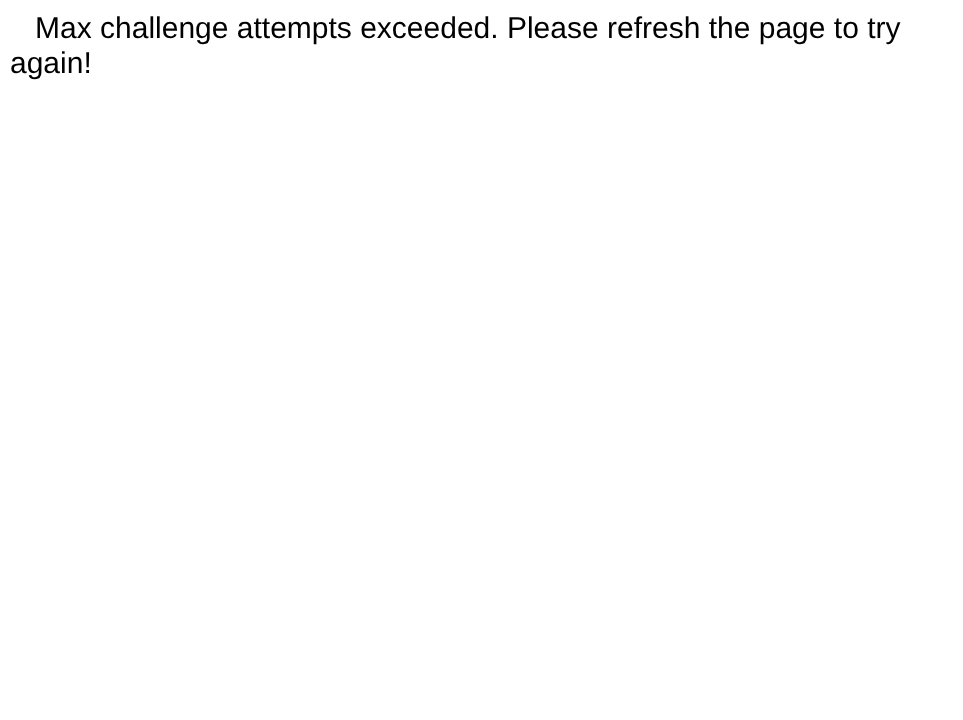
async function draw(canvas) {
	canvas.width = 963;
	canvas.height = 720;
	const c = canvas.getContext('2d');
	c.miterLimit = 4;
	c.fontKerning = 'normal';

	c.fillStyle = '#fff';
	c.fillRect(0, 0, 963, 720);
	c.font = '30px Liberation Sans';
	c.fillStyle = '#000';
	c.fillText('Max challenge attempts exceeded. Please refresh the page to try', 35, 38);
	c.fillText('again!', 10, 73);
}

draw(document.querySelector('canvas'));
